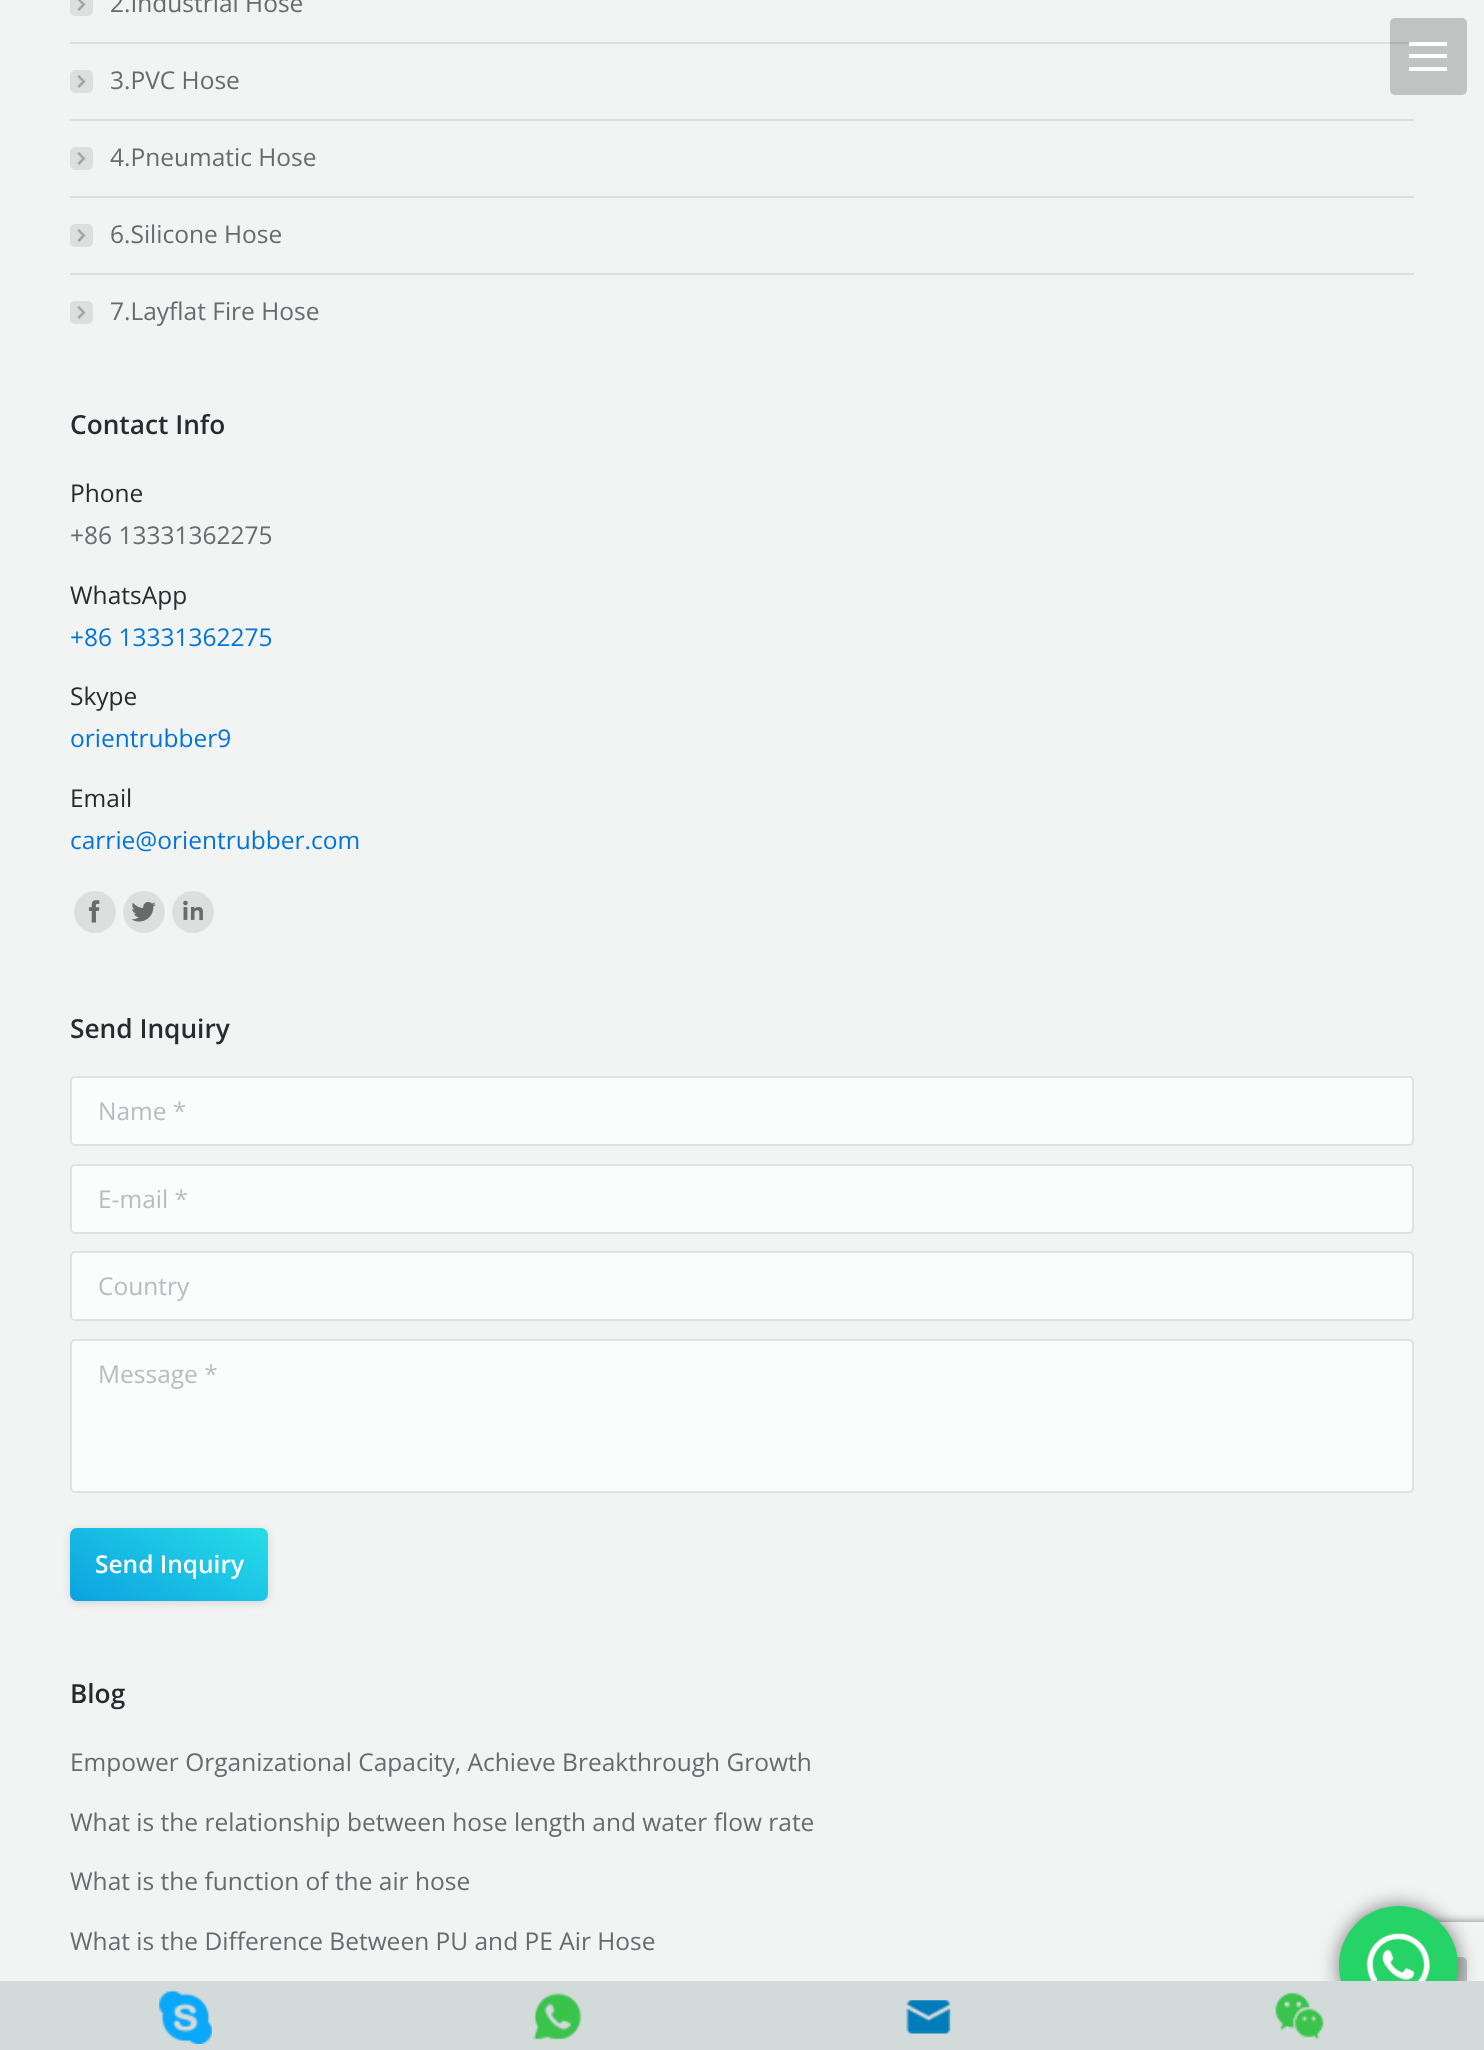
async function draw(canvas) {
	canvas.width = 1484;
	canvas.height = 2050;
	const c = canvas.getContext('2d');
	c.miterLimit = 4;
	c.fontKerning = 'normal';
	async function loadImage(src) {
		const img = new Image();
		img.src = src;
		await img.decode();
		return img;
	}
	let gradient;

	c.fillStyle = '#f2f3f3';
	c.fillRect(0, 0, 1484, 2050);
	c.drawImage(await loadImage('img1.png'), 77, 0, 9, 11);
	c.fillStyle = '#676b6d26';
	c.beginPath();
	c.roundRect(70, -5, 23, 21, 5);
	c.fill();
	c.font = '24.5px Open Sans';
	c.fillStyle = '#676b6d';
	c.fillText('2.Industrial Hose', 110, 12);
	c.fillStyle = '#dddfdf';
	c.fillRect(70, 42, 1344, 2);
	c.drawImage(await loadImage('img2.png'), 77, 75, 9, 13);
	c.fillStyle = '#676b6d26';
	c.beginPath();
	c.roundRect(70, 70, 23, 23, 5);
	c.fill();
	c.fillStyle = '#676b6d';
	c.fillText('3.PVC Hose', 110, 89);
	c.fillStyle = '#dddfdf';
	c.fillRect(70, 119, 1344, 2);
	c.drawImage(await loadImage('img2.png'), 77, 152, 9, 13);
	c.fillStyle = '#676b6d26';
	c.beginPath();
	c.roundRect(70, 147, 23, 23, 5);
	c.fill();
	c.fillStyle = '#676b6d';
	c.fillText('4.Pneumatic Hose', 110, 166);
	c.fillStyle = '#dddfdf';
	c.fillRect(70, 196, 1344, 2);
	c.drawImage(await loadImage('img2.png'), 77, 229, 9, 13);
	c.fillStyle = '#676b6d26';
	c.beginPath();
	c.roundRect(70, 224, 23, 23, 5);
	c.fill();
	c.fillStyle = '#676b6d';
	c.fillText('6.Silicone Hose', 110, 243);
	c.fillStyle = '#dddfdf';
	c.fillRect(70, 273, 1344, 2);
	c.drawImage(await loadImage('img2.png'), 77, 306, 9, 13);
	c.fillStyle = '#676b6d26';
	c.beginPath();
	c.roundRect(70, 301, 23, 23, 5);
	c.fill();
	c.fillStyle = '#676b6d';
	c.fillText('7.Layflat Fire Hose', 110, 320);
	c.font = '600 26.25px Open Sans';
	c.fillStyle = '#262b2e';
	c.fillText('Contact Info', 70, 434);
	c.font = '24.5px Open Sans';
	c.fillText('Phone', 70, 502);
	c.fillStyle = '#676b6d';
	c.fillText('+86 13331362275', 70, 544);
	c.fillStyle = '#262b2e';
	c.fillText('WhatsApp', 70, 604);
	c.fillStyle = '#0275d8';
	c.fillText('+86 13331362275', 70, 646);
	c.fillStyle = '#262b2e';
	c.fillText('Skype', 70, 705);
	c.fillStyle = '#0275d8';
	c.fillText('orientrubber9', 70, 747);
	c.fillStyle = '#262b2e';
	c.fillText('Email', 70, 807);
	c.fillStyle = '#0275d8';
	c.fillText('carrie@orientrubber.com', 70, 849);
	c.fillStyle = '#dddfdf';
	c.beginPath();
	c.arc(95, 912, 21, 0, 2 * Math.PI);
	c.fill();
	c.drawImage(await loadImage('img3.png'), 88, 900, 12, 23);
	c.beginPath();
	c.arc(144, 912, 21, 0, 2 * Math.PI);
	c.fill();
	c.drawImage(await loadImage('img4.png'), 131, 902, 25, 20);
	c.beginPath();
	c.arc(193, 912, 21, 0, 2 * Math.PI);
	c.fill();
	c.drawImage(await loadImage('img5.png'), 183, 900, 20, 21);
	c.font = '600 26.25px Open Sans';
	c.fillStyle = '#262b2e';
	c.fillText('Send Inquiry', 70, 1038);
	c.fillStyle = '#fbfcfc';
	c.beginPath();
	c.roundRect(71, 1077, 1342, 68, 4);
	c.fill();
	c.strokeStyle = '#e0e1e1';
	c.lineWidth = 2;
	c.stroke();
	c.font = '24.5px Open Sans';
	c.fillStyle = '#b8bcbe';
	c.fillText('Name *', 98, 1120);
	c.fillStyle = '#fbfcfc';
	c.beginPath();
	c.roundRect(71, 1165, 1342, 68, 4);
	c.fill();
	c.stroke();
	c.fillStyle = '#b8bcbe';
	c.fillText('E-mail *', 98, 1208);
	c.fillStyle = '#fbfcfc';
	c.beginPath();
	c.roundRect(71, 1252, 1342, 68, 4);
	c.fill();
	c.stroke();
	c.fillStyle = '#b8bcbe';
	c.fillText('Country', 98, 1295);
	c.fillStyle = '#fbfcfc';
	c.beginPath();
	c.roundRect(71, 1340, 1342, 152, 4);
	c.fill();
	c.stroke();
	c.fillStyle = '#b8bcbe';
	c.fillText('Message *', 98, 1383);
	c.fillStyle = '#0000001f';
	c.filter = 'blur(5px)';
	c.beginPath();
	c.roundRect(70, 1530, 198, 73, 7);
	c.fill();
	c.filter = 'none';
	gradient = c.createLinearGradient(128, 1635, 210, 1494);
	gradient.addColorStop(0, '#0ca2e0');
	gradient.addColorStop(1, '#27dde8');
	c.fillStyle = gradient;
	c.beginPath();
	c.roundRect(70, 1528, 198, 73, 7);
	c.fill();
	c.font = '600 24.5px Open Sans';
	c.fillStyle = '#fff';
	c.fillText('Send Inquiry', 95, 1573);
	c.font = '600 26.25px Open Sans';
	c.fillStyle = '#262b2e';
	c.fillText('Blog', 70, 1703);
	c.font = '24.5px Open Sans';
	c.fillStyle = '#676b6d';
	for (const [text, x, y] of [
		['Empower Organizational Capacity, Achieve Breakthrough Growth', 70, 1771],
		['What is the relationship between hose length and water flow rate', 70, 1831],
		['What is the function of the air hose', 70, 1890],
		['What is the Difference Between PU and PE Air Hose', 70, 1950],
	]) {
		c.fillText(text, x, y);
	}
	c.save();
	c.beginPath();
	c.moveTo(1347, 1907);
	c.lineTo(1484, 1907);
	c.lineTo(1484, 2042);
	c.lineTo(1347, 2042);
	c.closePath();
	c.moveTo(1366, 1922);
	c.lineTo(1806, 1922);
	c.bezierCurveTo(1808, 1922, 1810, 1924, 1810, 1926);
	c.lineTo(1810, 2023);
	c.bezierCurveTo(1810, 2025, 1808, 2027, 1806, 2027);
	c.lineTo(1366, 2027);
	c.bezierCurveTo(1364, 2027, 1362, 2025, 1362, 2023);
	c.lineTo(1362, 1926);
	c.bezierCurveTo(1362, 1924, 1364, 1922, 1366, 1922);
	c.closePath();
	c.clip('evenodd');
	c.fillStyle = '#808080';
	c.filter = 'blur(4.5px)';
	c.beginPath();
	c.roundRect(1362, 1922, 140, 105, 4);
	c.fill();
	c.filter = 'none';
	c.restore();
	c.fillStyle = '#00000033';
	c.beginPath();
	c.roundRect(1390, 1957, 77, 77, 5);
	c.fill();
	c.fillStyle = '#00000080';
	c.filter = 'blur(9.5px)';
	c.beginPath();
	c.roundRect(1339, 1906, 119, 119, 59.5);
	c.fill();
	c.filter = 'none';
	c.fillStyle = '#25d366';
	c.beginPath();
	c.arc(1398.5, 1965.5, 59.5, 0, 2 * Math.PI);
	c.fill();
	c.fillStyle = '#d3dada';
	c.fillRect(0, 1981, 1484, 69);
	c.drawImage(await loadImage('img6.png'), 159, 1989, 53, 55);
	c.drawImage(await loadImage('img7.png'), 533, 1992, 49, 48);
	c.drawImage(await loadImage('img8.png'), 906, 2000, 45, 34);
	c.drawImage(await loadImage('img9.png'), 1275, 1992, 49, 48);
	c.fillStyle = '#00000033';
	c.beginPath();
	c.roundRect(1390, 18, 77, 77, 5);
	c.fill();
	for (const [x, y, w, h, color] of [
		[1409, 54, 38, 4, '#fff'],
		[1409, 42, 38, 4, '#fff'],
		[1409, 67, 38, 4, '#fff'],
	]) {
		c.fillStyle = color;
		c.fillRect(x, y, w, h);
	}
	c.drawImage(await loadImage('img10.png'), 1366, 1933, 64, 48);
}

draw(document.querySelector('canvas'));
